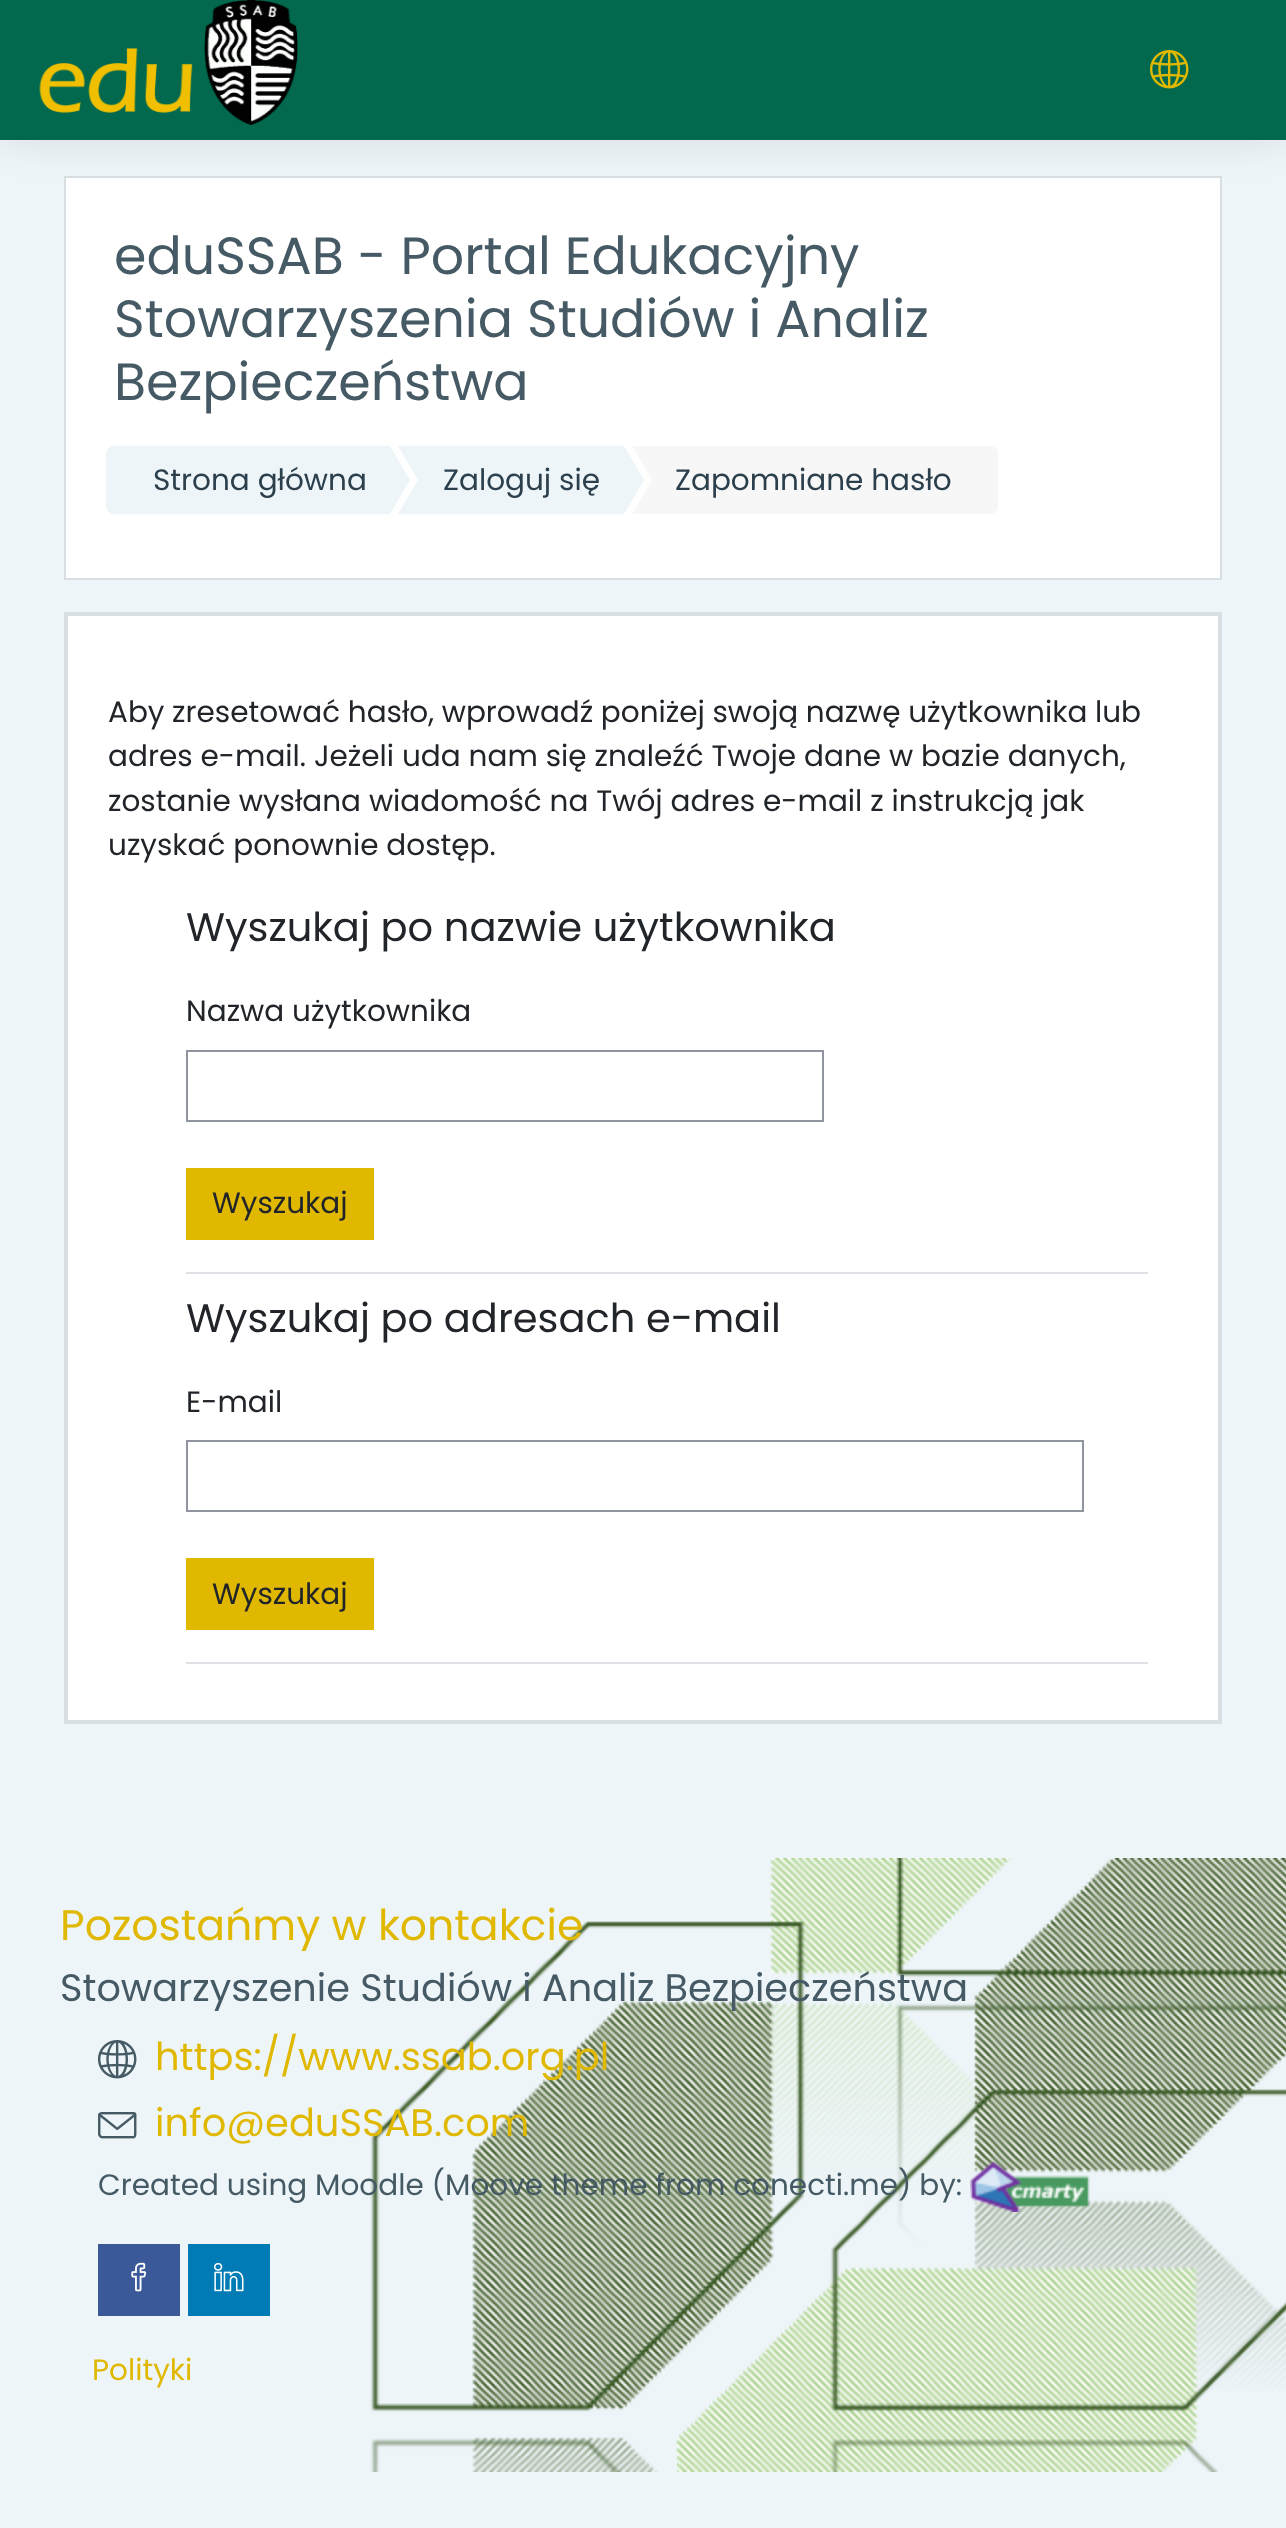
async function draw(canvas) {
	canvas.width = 1286;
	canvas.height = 2528;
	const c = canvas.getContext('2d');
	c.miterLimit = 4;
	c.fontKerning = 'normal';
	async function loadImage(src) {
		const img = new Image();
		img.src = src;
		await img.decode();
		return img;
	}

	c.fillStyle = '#eef5f9';
	c.fillRect(0, 0, 1286, 2528);
	c.fillStyle = '#fff';
	c.beginPath();
	c.rect(65, 177, 1156, 402);
	c.fill();
	c.strokeStyle = '#d7dfe3';
	c.lineWidth = 2;
	c.stroke();
	c.fillStyle = '#0000001a';
	c.filter = 'blur(20px)';
	c.beginPath();
	c.rect(0, 0, 1286, 140);
	c.fill();
	c.filter = 'none';
	c.fillStyle = '#02694f';
	c.fillRect(0, 0, 1286, 140);
	c.drawImage(await loadImage('img1.png'), 39, 0, 259, 125);
	c.drawImage(await loadImage('img2.png'), 1150, 50, 39, 39);
	c.font = '52.25px Poppins';
	c.fillStyle = '#455a64';
	for (const [text, x, y] of [
		['eduSSAB - Portal Edukacyjny', 114, 274],
		['Stowarzyszenia Studiów i Analiz', 114, 337],
		['Bezpieczeństwa', 114, 400],
	]) {
		c.fillText(text, x, y);
	}
	c.fillStyle = '#eef5f9';
	c.beginPath();
	c.roundRect(106, 446, 284, 68, [8, 0, 0, 8]);
	c.fill();
	c.font = '29.5px Poppins';
	c.fillStyle = '#2c3f4c';
	c.fillText('Strona główna', 153, 490);
	c.fillStyle = '#eef5f9';
	c.fillRect(398, 446, 226, 68);
	c.fillStyle = '#fff';
	c.beginPath();
	c.moveTo(398, 514);
	c.lineTo(398, 446);
	c.lineTo(418, 480);
	c.closePath();
	c.fill();
	c.fillStyle = '#eef5f9';
	c.beginPath();
	c.moveTo(390, 514);
	c.lineTo(390, 446);
	c.lineTo(410, 480);
	c.closePath();
	c.fill();
	c.fillStyle = '#2c3f4c';
	c.fillText('Zaloguj się', 443, 490);
	c.fillStyle = '#f7f7f7';
	c.beginPath();
	c.roundRect(632, 446, 366, 68, [0, 8, 8, 0]);
	c.fill();
	c.fillStyle = '#fff';
	c.beginPath();
	c.moveTo(632, 514);
	c.lineTo(632, 446);
	c.lineTo(652, 480);
	c.closePath();
	c.fill();
	c.fillStyle = '#eef5f9';
	c.beginPath();
	c.moveTo(624, 514);
	c.lineTo(624, 446);
	c.lineTo(644, 480);
	c.closePath();
	c.fill();
	c.fillStyle = '#2c3f4c';
	c.fillText('Zapomniane hasło', 675, 490);
	c.strokeRect(65, 613, 1156, 1110);
	c.fillStyle = '#fff';
	c.beginPath();
	c.rect(67, 615, 1152, 1106);
	c.fill();
	c.stroke();
	c.wordSpacing = '-0.25px';
	c.fillStyle = '#212529';
	c.fillText('Aby zresetować hasło, wprowadź poniżej swoją nazwę użytkownika lub', 108, 722);
	c.wordSpacing = '0px';
	for (const [text, x, y] of [
		['adres e-mail. Jeżeli uda nam się znaleźć Twoje dane w bazie danych,', 108, 766],
		['zostanie wysłana wiadomość na Twój adres e-mail z instrukcją jak', 108, 811],
		['uzyskać ponownie dostęp.', 108, 855],
	]) {
		c.fillText(text, x, y);
	}
	c.fillStyle = '#dee2e6';
	c.fillRect(186, 1272, 962, 2);
	c.font = '40px Poppins';
	c.fillStyle = '#212529';
	c.fillText('Wyszukaj po nazwie użytkownika', 186, 941);
	c.font = '29.5px Poppins';
	c.fillText('Nazwa użytkownika', 186, 1021);
	c.strokeStyle = '#8f959e';
	c.strokeRect(187, 1051, 636, 70);
	c.fillStyle = '#e0b800';
	c.fillRect(186, 1168, 188, 72);
	c.fillStyle = '#212529';
	c.fillText('Wyszukaj', 212, 1213);
	c.fillStyle = '#dee2e6';
	c.fillRect(186, 1662, 962, 2);
	c.font = '40px Poppins';
	c.fillStyle = '#212529';
	c.fillText('Wyszukaj po adresach e-mail', 186, 1332);
	c.font = '29.5px Poppins';
	c.fillText('E-mail', 186, 1412);
	c.strokeRect(187, 1441, 896, 70);
	c.fillStyle = '#e0b800';
	c.fillRect(186, 1558, 188, 72);
	c.fillStyle = '#212529';
	c.fillText('Wyszukaj', 212, 1604);
	c.drawImage(await loadImage('img3.png'), 370, 1858, 916, 614);
	c.font = '42.6px Poppins';
	c.fillStyle = '#e0b800';
	c.fillText('Pozostańmy w kontakcie', 60, 1940);
	c.font = '38.25px Poppins';
	c.fillStyle = '#455a64';
	c.fillText('Stowarzyszenie Studiów i Analiz Bezpieczeństwa', 60, 2001);
	c.drawImage(await loadImage('img4.png'), 98, 2040, 39, 39);
	c.font = '38.4px Poppins';
	c.fillStyle = '#e0b800';
	c.fillText('https://www.ssab.org.pl', 155, 2070);
	c.drawImage(await loadImage('img5.png'), 98, 2112, 39, 27);
	c.fillText('info@eduSSAB.com', 155, 2136);
	c.font = '29.5px Poppins';
	c.fillStyle = '#455a64';
	c.fillText('Created using Moodle (Moove theme from conecti.me) by:', 98, 2195);
	c.drawImage(await loadImage('img6.png'), 970, 2162, 120, 50);
	c.fillStyle = '#3b5998';
	c.fillRect(98, 2244, 82, 72);
	c.drawImage(await loadImage('img7.png'), 131, 2262, 16, 30);
	c.fillStyle = '#007bb5';
	c.fillRect(188, 2244, 82, 72);
	c.drawImage(await loadImage('img8.png'), 214, 2263, 30, 29);
	c.fillStyle = '#e0b800';
	c.fillText('Polityki', 92, 2380);
}

draw(document.querySelector('canvas'));
